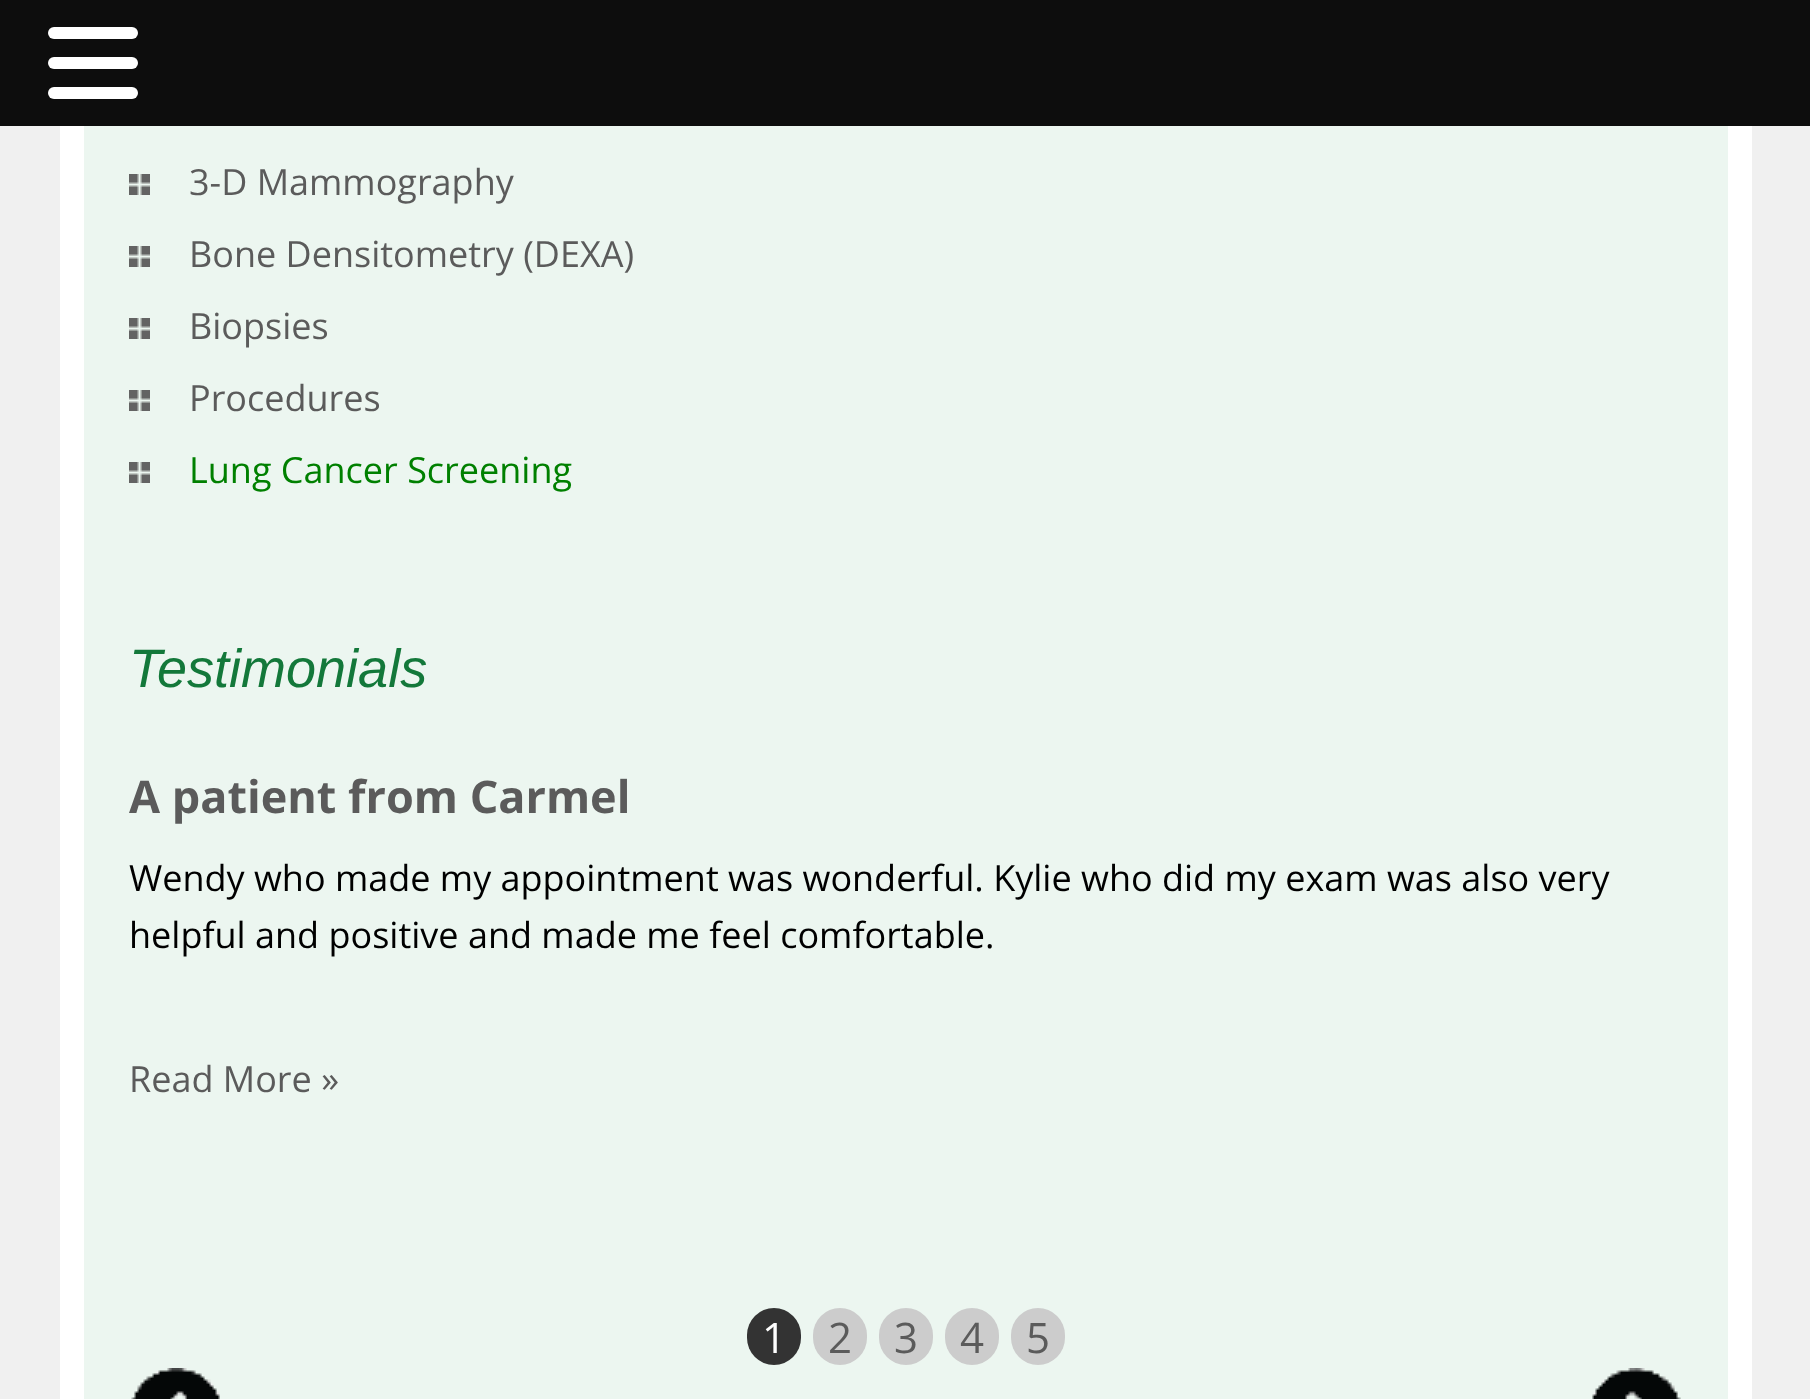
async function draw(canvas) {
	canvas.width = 1810;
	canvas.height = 1399;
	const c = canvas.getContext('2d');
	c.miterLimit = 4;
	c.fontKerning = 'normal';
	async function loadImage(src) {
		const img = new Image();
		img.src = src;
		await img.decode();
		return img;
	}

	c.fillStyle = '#f0f0f0';
	c.fillRect(0, 0, 1810, 1399);
	c.fillStyle = '#0d0d0d';
	c.fillRect(0, 0, 1810, 126);
	c.fillStyle = '#fff';
	c.beginPath();
	c.roundRect(48, 27, 90, 12, 6);
	c.fill();
	c.beginPath();
	c.roundRect(48, 57, 90, 12, 6);
	c.fill();
	c.beginPath();
	c.roundRect(48, 87, 90, 12, 6);
	c.fill();
	c.fillRect(60, 126, 1692, 1273);
	c.fillStyle = '#ecf6f0';
	c.fillRect(84, 126, 1644, 1273);
	c.drawImage(await loadImage('img1.png'), 129, 174, 21, 21);
	c.font = '36px Open Sans';
	c.fillStyle = '#5b5b5b';
	c.fillText('3-D Mammography', 189, 195);
	c.drawImage(await loadImage('img1.png'), 129, 246, 21, 21);
	c.fillText('Bone Densitometry (DEXA)', 189, 267);
	c.drawImage(await loadImage('img1.png'), 129, 318, 21, 21);
	c.fillText('Biopsies', 189, 339);
	c.drawImage(await loadImage('img1.png'), 129, 390, 21, 21);
	c.fillText('Procedures', 189, 411);
	c.drawImage(await loadImage('img1.png'), 129, 462, 21, 21);
	c.fillStyle = '#008000';
	c.fillText('Lung Cancer Screening', 189, 483);
	c.font = 'italic 54px Liberation Sans';
	c.fillStyle = '#13783a';
	c.fillText('Testimonials', 129, 687);
	c.font = 'bold 45px Open Sans';
	c.fillStyle = '#5b5b5b';
	c.fillText('A patient from Carmel', 129, 813);
	c.font = '36px Open Sans';
	c.fillStyle = '#000';
	c.fillText('Wendy who made my appointment was wonderful. Kylie who did my exam was also very', 129, 891);
	c.fillText('helpful and positive and made me feel comfortable.', 129, 948);
	c.fillStyle = '#5b5b5b';
	c.fillText('Read More »', 129, 1092);
	c.fillStyle = '#333';
	c.beginPath();
	c.roundRect(747, 1308, 54, 57, 27);
	c.fill();
	c.font = '42px Open Sans';
	c.fillStyle = '#fff';
	c.fillText('1', 762, 1353);
	c.fillStyle = '#ccc';
	c.beginPath();
	c.roundRect(813, 1308, 54, 57, 27);
	c.fill();
	c.fillStyle = '#5b5b5b';
	c.fillText('2', 828, 1353);
	c.fillStyle = '#ccc';
	c.beginPath();
	c.roundRect(879, 1308, 54, 57, 27);
	c.fill();
	c.fillStyle = '#5b5b5b';
	c.fillText('3', 894, 1353);
	c.fillStyle = '#ccc';
	c.beginPath();
	c.roundRect(945, 1308, 54, 57, 27);
	c.fill();
	c.fillStyle = '#5b5b5b';
	c.fillText('4', 960, 1353);
	c.fillStyle = '#ccc';
	c.beginPath();
	c.roundRect(1011, 1308, 54, 57, 27);
	c.fill();
	c.fillStyle = '#5b5b5b';
	c.fillText('5', 1026, 1353);
	c.drawImage(await loadImage('img2.png'), 131, 1368, 89, 31);
	c.drawImage(await loadImage('img3.png'), 1592, 1368, 89, 31);
}

draw(document.querySelector('canvas'));
